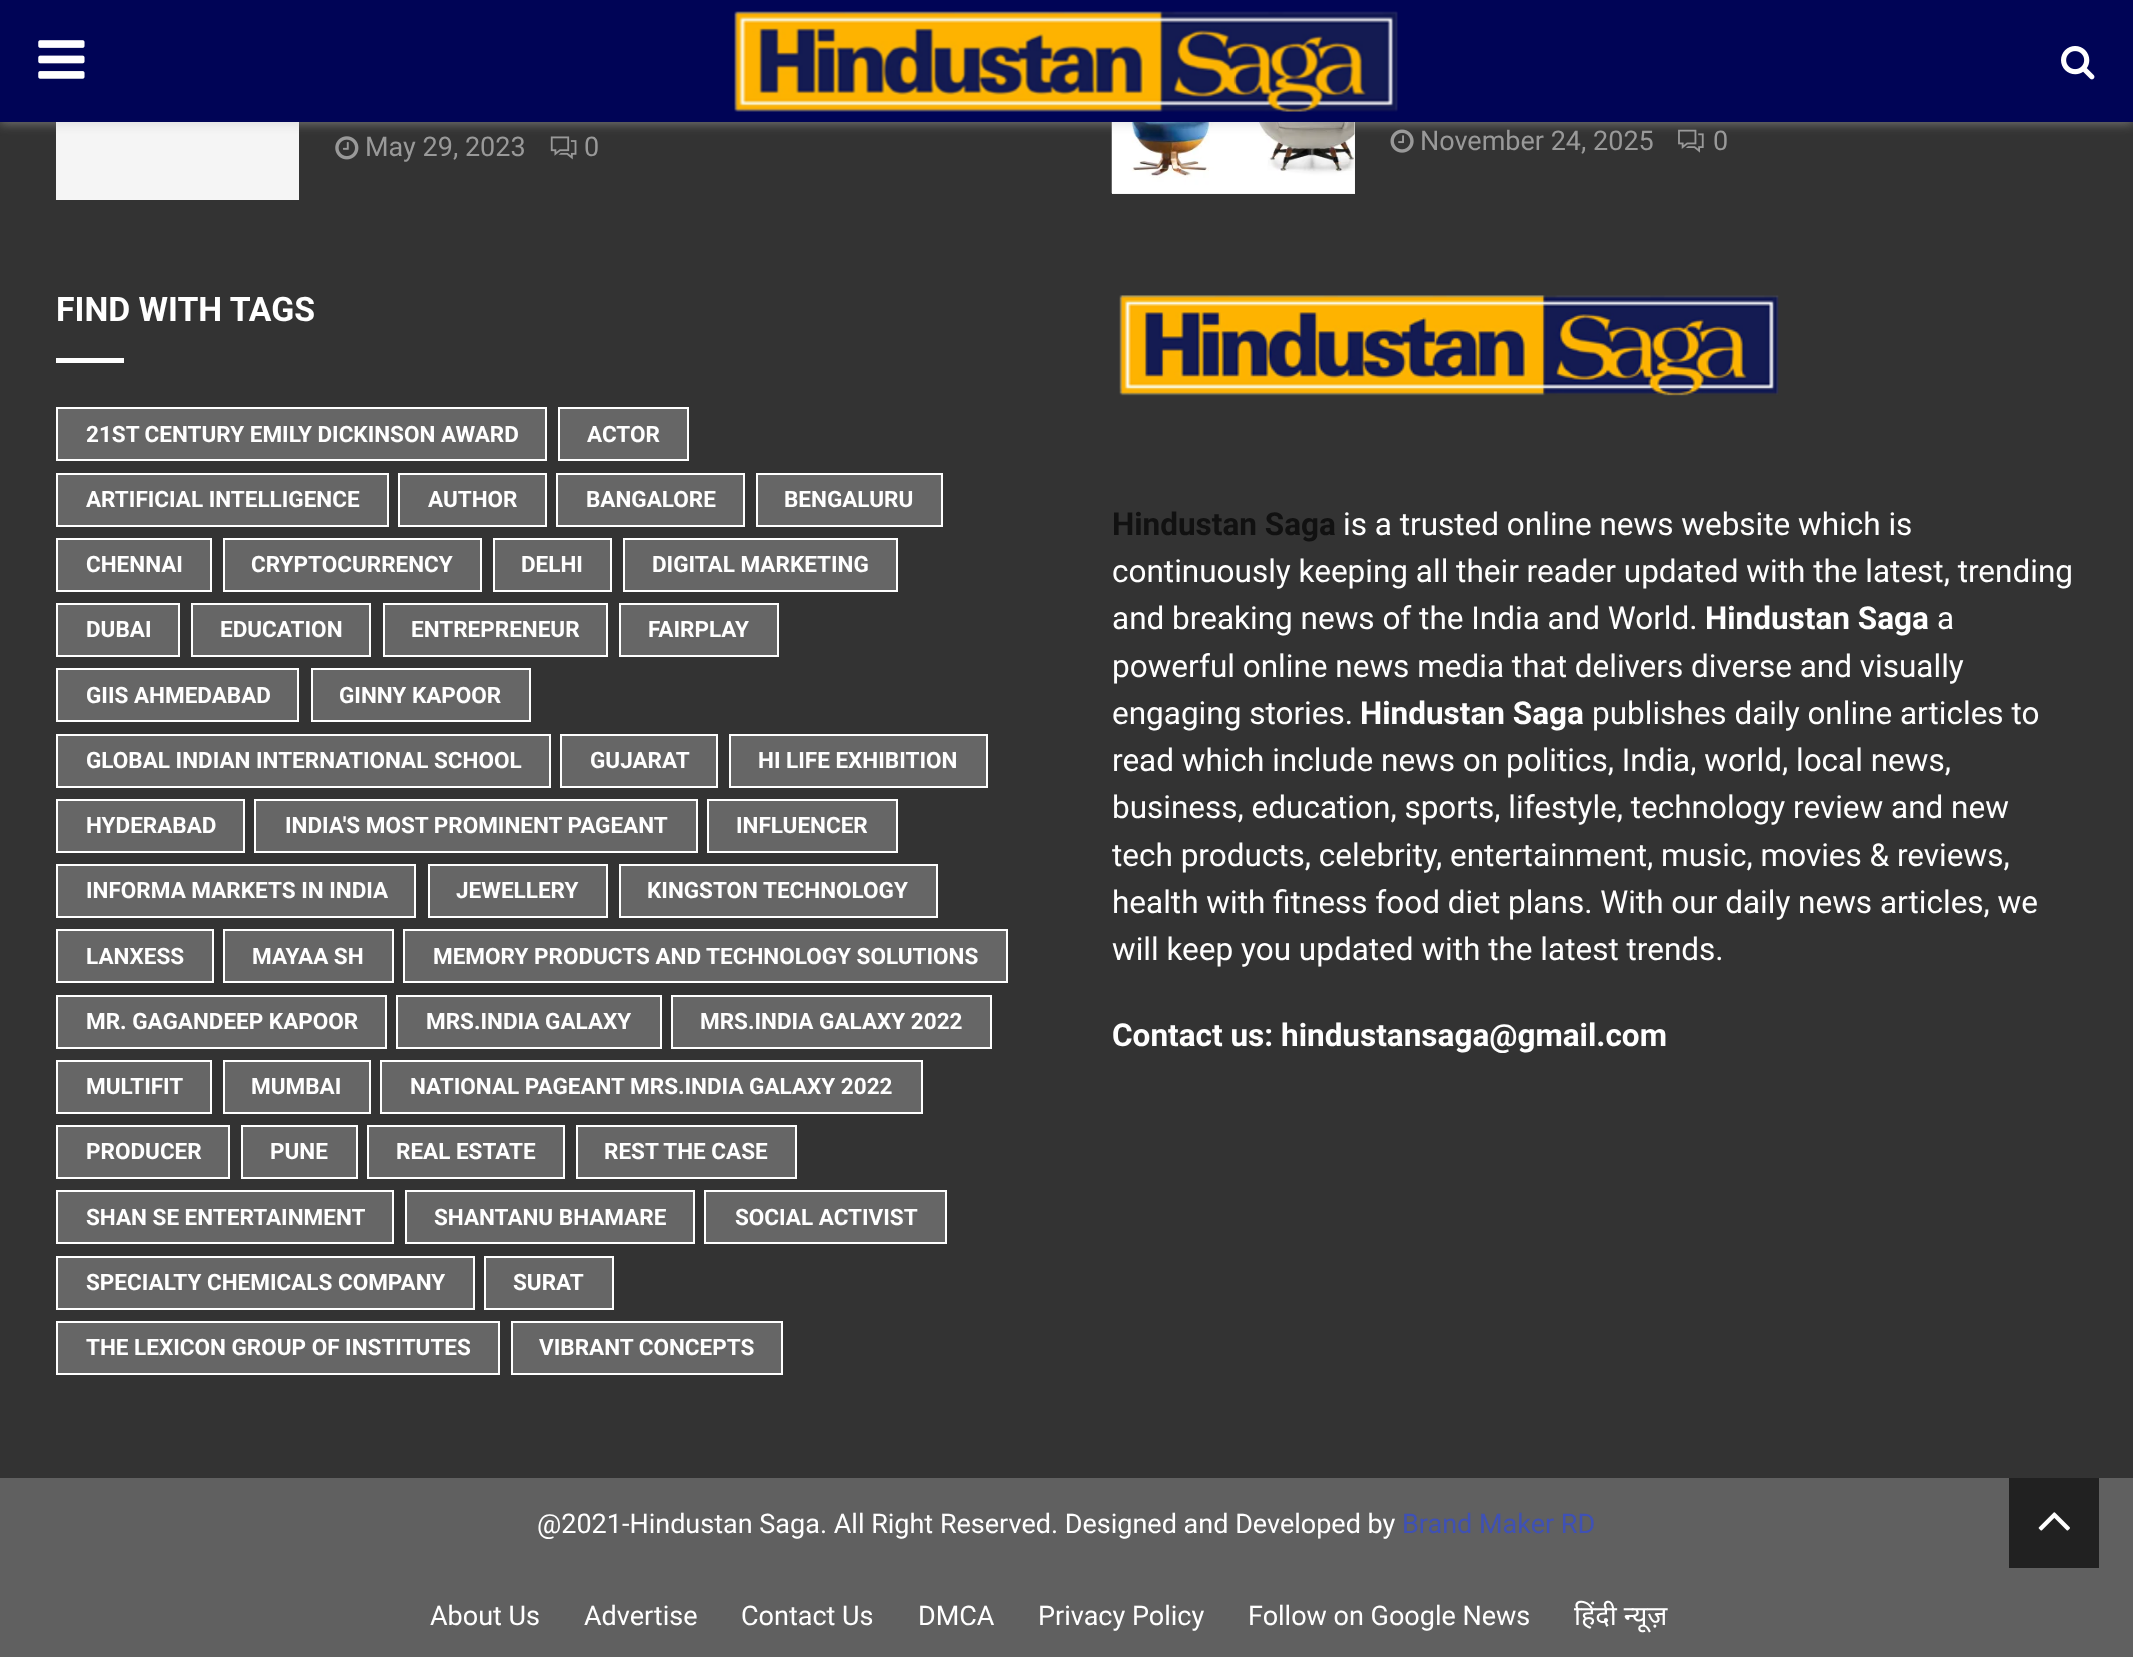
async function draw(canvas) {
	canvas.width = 2133;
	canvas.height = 1657;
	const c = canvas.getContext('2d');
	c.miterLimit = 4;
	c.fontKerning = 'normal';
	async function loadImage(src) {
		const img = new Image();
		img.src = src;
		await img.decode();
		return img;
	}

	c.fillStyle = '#333';
	c.fillRect(0, 0, 2133, 1657);
	c.fillStyle = '#f5f5f5';
	c.fillRect(56, 122, 243, 78);
	c.drawImage(await loadImage('img4.png'), 335, 136, 24, 24);
	c.drawImage(await loadImage('img5.png'), 550, 136, 27, 24);
	c.fillRect(1112, 122, 243, 72);
	c.drawImage(await loadImage('img6.png'), 1111, 122, 244, 72);
	c.drawImage(await loadImage('img7.png'), 1390, 129, 24, 24);
	c.drawImage(await loadImage('img8.png'), 1678, 129, 26, 24);
	c.fillStyle = '#bebebe75';
	c.filter = 'blur(5.5px)';
	c.beginPath();
	c.rect(0, 2, 2133, 122);
	c.fill();
	c.filter = 'none';
	c.fillStyle = '#000456';
	c.fillRect(0, 0, 2133, 122);
	c.drawImage(await loadImage('img1.png'), 38, 40, 47, 39);
	c.drawImage(await loadImage('img2.png'), 734, 11, 664, 101);
	c.drawImage(await loadImage('img3.png'), 2061, 46, 34, 34);
	c.font = '27px Roboto';
	c.fillStyle = '#999';
	for (const [text, x, y] of [
		['May 29, 2023', 365, 156],
		['0', 584, 156],
		['November 24, 2025', 1420, 150],
		['0', 1713, 150],
	]) {
		c.fillText(text, x, y);
	}
	c.font = 'bold 33.75px Roboto';
	c.fillStyle = '#fff';
	c.fillText('FIND WITH TAGS', 56, 321);
	c.fillRect(56, 358, 68, 5);
	c.fillStyle = '#666';
	c.beginPath();
	c.rect(57, 408, 489, 52);
	c.fill();
	c.strokeStyle = '#fff';
	c.lineWidth = 2;
	c.stroke();
	c.font = 'bold 22.5px Roboto';
	c.fillStyle = '#fff';
	c.fillText('21ST CENTURY EMILY DICKINSON AWARD', 86, 442);
	c.fillStyle = '#666';
	c.beginPath();
	c.rect(559, 408, 129, 52);
	c.fill();
	c.stroke();
	c.fillStyle = '#fff';
	c.fillText('ACTOR', 587, 442);
	c.fillStyle = '#666';
	c.beginPath();
	c.rect(57, 474, 331, 52);
	c.fill();
	c.stroke();
	c.fillStyle = '#fff';
	c.fillText('ARTIFICIAL INTELLIGENCE', 86, 507);
	c.fillStyle = '#666';
	c.beginPath();
	c.rect(399, 474, 147, 52);
	c.fill();
	c.stroke();
	c.fillStyle = '#fff';
	c.fillText('AUTHOR', 428, 507);
	c.fillStyle = '#666';
	c.beginPath();
	c.rect(557, 474, 187, 52);
	c.fill();
	c.stroke();
	c.fillStyle = '#fff';
	c.fillText('BANGALORE', 586, 507);
	c.fillStyle = '#666';
	c.beginPath();
	c.rect(757, 474, 185, 52);
	c.fill();
	c.stroke();
	c.fillStyle = '#fff';
	c.fillText('BENGALURU', 784, 507);
	c.fillStyle = '#666';
	c.beginPath();
	c.rect(57, 539, 154, 52);
	c.fill();
	c.stroke();
	c.fillStyle = '#fff';
	c.fillText('CHENNAI', 86, 572);
	c.fillStyle = '#666';
	c.beginPath();
	c.rect(224, 539, 257, 52);
	c.fill();
	c.stroke();
	c.fillStyle = '#fff';
	c.fillText('CRYPTOCURRENCY', 251, 572);
	c.fillStyle = '#666';
	c.beginPath();
	c.rect(494, 539, 117, 52);
	c.fill();
	c.stroke();
	c.fillStyle = '#fff';
	c.fillText('DELHI', 521, 572);
	c.fillStyle = '#666';
	c.beginPath();
	c.rect(624, 539, 273, 52);
	c.fill();
	c.stroke();
	c.fillStyle = '#fff';
	c.fillText('DIGITAL MARKETING', 652, 572);
	c.fillStyle = '#666';
	c.beginPath();
	c.rect(57, 604, 122, 52);
	c.fill();
	c.stroke();
	c.fillStyle = '#fff';
	c.fillText('DUBAI', 86, 637);
	c.fillStyle = '#666';
	c.beginPath();
	c.rect(192, 604, 178, 52);
	c.fill();
	c.stroke();
	c.fillStyle = '#fff';
	c.fillText('EDUCATION', 220, 637);
	c.fillStyle = '#666';
	c.beginPath();
	c.rect(384, 604, 223, 52);
	c.fill();
	c.stroke();
	c.fillStyle = '#fff';
	c.fillText('ENTREPRENEUR', 411, 637);
	c.fillStyle = '#666';
	c.beginPath();
	c.rect(620, 604, 158, 52);
	c.fill();
	c.stroke();
	c.fillStyle = '#fff';
	c.fillText('FAIRPLAY', 648, 637);
	c.fillStyle = '#666';
	c.beginPath();
	c.rect(57, 669, 241, 52);
	c.fill();
	c.stroke();
	c.fillStyle = '#fff';
	c.fillText('GIIS AHMEDABAD', 86, 703);
	c.fillStyle = '#666';
	c.beginPath();
	c.rect(312, 669, 218, 52);
	c.fill();
	c.stroke();
	c.fillStyle = '#fff';
	c.fillText('GINNY KAPOOR', 339, 703);
	c.fillStyle = '#666';
	c.beginPath();
	c.rect(57, 735, 493, 52);
	c.fill();
	c.stroke();
	c.fillStyle = '#fff';
	c.fillText('GLOBAL INDIAN INTERNATIONAL SCHOOL', 86, 768);
	c.fillStyle = '#666';
	c.beginPath();
	c.rect(561, 735, 156, 52);
	c.fill();
	c.stroke();
	c.fillStyle = '#fff';
	c.fillText('GUJARAT', 590, 768);
	c.fillStyle = '#666';
	c.beginPath();
	c.rect(730, 735, 257, 52);
	c.fill();
	c.stroke();
	c.fillStyle = '#fff';
	c.fillText('HI LIFE EXHIBITION', 758, 768);
	c.fillStyle = '#666';
	c.beginPath();
	c.rect(57, 800, 187, 52);
	c.fill();
	c.stroke();
	c.fillStyle = '#fff';
	c.fillText('HYDERABAD', 86, 833);
	c.fillStyle = '#666';
	c.beginPath();
	c.rect(255, 800, 442, 52);
	c.fill();
	c.stroke();
	c.fillStyle = '#fff';
	c.fillText('INDIA\'S MOST PROMINENT PAGEANT', 285, 833);
	c.fillStyle = '#666';
	c.beginPath();
	c.rect(708, 800, 189, 52);
	c.fill();
	c.stroke();
	c.fillStyle = '#fff';
	c.fillText('INFLUENCER', 736, 833);
	c.fillStyle = '#666';
	c.beginPath();
	c.rect(57, 865, 358, 52);
	c.fill();
	c.stroke();
	c.fillStyle = '#fff';
	c.fillText('INFORMA MARKETS IN INDIA', 86, 898);
	c.fillStyle = '#666';
	c.beginPath();
	c.rect(429, 865, 178, 52);
	c.fill();
	c.stroke();
	c.fillStyle = '#fff';
	c.fillText('JEWELLERY', 456, 898);
	c.fillStyle = '#666';
	c.beginPath();
	c.rect(620, 865, 317, 52);
	c.fill();
	c.stroke();
	c.fillStyle = '#fff';
	c.fillText('KINGSTON TECHNOLOGY', 647, 898);
	c.fillStyle = '#666';
	c.beginPath();
	c.rect(57, 930, 156, 52);
	c.fill();
	c.stroke();
	c.fillStyle = '#fff';
	c.fillText('LANXESS', 86, 964);
	c.fillStyle = '#666';
	c.beginPath();
	c.rect(224, 930, 169, 52);
	c.fill();
	c.stroke();
	c.fillStyle = '#fff';
	c.fillText('MAYAA SH', 252, 964);
	c.fillStyle = '#666';
	c.beginPath();
	c.rect(404, 930, 603, 52);
	c.fill();
	c.stroke();
	c.fillStyle = '#fff';
	c.fillText('MEMORY PRODUCTS AND TECHNOLOGY SOLUTIONS', 433, 964);
	c.fillStyle = '#666';
	c.beginPath();
	c.rect(57, 996, 329, 52);
	c.fill();
	c.stroke();
	c.fillStyle = '#fff';
	c.fillText('MR. GAGANDEEP KAPOOR', 86, 1029);
	c.fillStyle = '#666';
	c.beginPath();
	c.rect(397, 996, 264, 52);
	c.fill();
	c.stroke();
	c.fillStyle = '#fff';
	c.fillText('MRS.INDIA GALAXY', 426, 1029);
	c.fillStyle = '#666';
	c.beginPath();
	c.rect(672, 996, 319, 52);
	c.fill();
	c.stroke();
	c.fillStyle = '#fff';
	c.fillText('MRS.INDIA GALAXY 2022', 700, 1029);
	c.fillStyle = '#666';
	c.beginPath();
	c.rect(57, 1061, 154, 52);
	c.fill();
	c.stroke();
	c.fillStyle = '#fff';
	c.fillText('MULTIFIT', 86, 1094);
	c.fillStyle = '#666';
	c.beginPath();
	c.rect(224, 1061, 146, 52);
	c.fill();
	c.stroke();
	c.fillStyle = '#fff';
	c.fillText('MUMBAI', 251, 1094);
	c.fillStyle = '#666';
	c.beginPath();
	c.rect(381, 1061, 541, 52);
	c.fill();
	c.stroke();
	c.fillStyle = '#fff';
	c.fillText('NATIONAL PAGEANT MRS.INDIA GALAXY 2022', 410, 1094);
	c.fillStyle = '#666';
	c.beginPath();
	c.rect(57, 1126, 172, 52);
	c.fill();
	c.stroke();
	c.fillStyle = '#fff';
	c.fillText('PRODUCER', 86, 1159);
	c.fillStyle = '#666';
	c.beginPath();
	c.rect(242, 1126, 115, 52);
	c.fill();
	c.stroke();
	c.fillStyle = '#fff';
	c.fillText('PUNE', 270, 1159);
	c.fillStyle = '#666';
	c.beginPath();
	c.rect(368, 1126, 196, 52);
	c.fill();
	c.stroke();
	c.fillStyle = '#fff';
	c.fillText('REAL ESTATE', 396, 1159);
	c.fillStyle = '#666';
	c.beginPath();
	c.rect(577, 1126, 219, 52);
	c.fill();
	c.stroke();
	c.fillStyle = '#fff';
	c.fillText('REST THE CASE', 604, 1159);
	c.fillStyle = '#666';
	c.beginPath();
	c.rect(57, 1191, 336, 52);
	c.fill();
	c.stroke();
	c.fillStyle = '#fff';
	c.fillText('SHAN SE ENTERTAINMENT', 86, 1225);
	c.fillStyle = '#666';
	c.beginPath();
	c.rect(406, 1191, 288, 52);
	c.fill();
	c.stroke();
	c.fillStyle = '#fff';
	c.fillText('SHANTANU BHAMARE', 434, 1225);
	c.fillStyle = '#666';
	c.beginPath();
	c.rect(705, 1191, 241, 52);
	c.fill();
	c.stroke();
	c.fillStyle = '#fff';
	c.fillText('SOCIAL ACTIVIST', 735, 1225);
	c.fillStyle = '#666';
	c.beginPath();
	c.rect(57, 1257, 417, 52);
	c.fill();
	c.stroke();
	c.fillStyle = '#fff';
	c.fillText('SPECIALTY CHEMICALS COMPANY', 86, 1290);
	c.fillStyle = '#666';
	c.beginPath();
	c.rect(485, 1257, 128, 52);
	c.fill();
	c.stroke();
	c.fillStyle = '#fff';
	c.fillText('SURAT', 513, 1290);
	c.fillStyle = '#666';
	c.beginPath();
	c.rect(57, 1322, 442, 52);
	c.fill();
	c.stroke();
	c.fillStyle = '#fff';
	c.fillText('THE LEXICON GROUP OF INSTITUTES', 86, 1355);
	c.fillStyle = '#666';
	c.beginPath();
	c.rect(512, 1322, 270, 52);
	c.fill();
	c.stroke();
	c.fillStyle = '#fff';
	c.fillText('VIBRANT CONCEPTS', 539, 1355);
	c.drawImage(await loadImage('img9.png'), 1119, 295, 660, 101);
	c.font = 'bold 31.5px Roboto';
	c.fillStyle = '#111';
	c.fillText('Hindustan Saga', 1112, 535);
	c.font = '31.5px Roboto';
	c.fillStyle = '#fff';
	for (const [text, x, y] of [
		['is a trusted online news website which is', 1343, 535],
		['continuously keeping all their reader updated with the latest, trending', 1112, 582],
		['and breaking news of the India and World.', 1112, 629],
	]) {
		c.fillText(text, x, y);
	}
	c.font = 'bold 31.5px Roboto';
	c.fillText('Hindustan Saga', 1705, 629);
	c.font = '31.5px Roboto';
	for (const [text, x, y] of [
		['a', 1937, 629],
		['powerful online news media that delivers diverse and visually', 1112, 677],
		['engaging stories.', 1112, 724],
	]) {
		c.fillText(text, x, y);
	}
	c.font = 'bold 31.5px Roboto';
	c.fillText('Hindustan Saga', 1360, 724);
	c.font = '31.5px Roboto';
	for (const [text, x, y] of [
		['publishes daily online articles to', 1592, 724],
		['read which include news on politics, India, world, local news,', 1112, 771],
		['business, education, sports, lifestyle, technology review and new', 1112, 818],
		['tech products, celebrity, entertainment, music, movies & reviews,', 1112, 866],
		['health with fitness food diet plans. With our daily news articles, we', 1112, 913],
		['will keep you updated with the latest trends.', 1112, 960],
	]) {
		c.fillText(text, x, y);
	}
	c.font = 'bold 31.5px Roboto';
	c.fillText('Contact us: hindustansaga@gmail.com', 1112, 1046);
	c.fillStyle = '#606060';
	c.fillRect(0, 1478, 2133, 179);
	c.font = '27px Roboto';
	c.fillStyle = '#fff';
	c.fillText('@2021-Hindustan Saga. All Right Reserved. Designed and Developed by', 537, 1533);
	c.fillStyle = '#3f51b5';
	c.fillText('Brand Maker RD', 1402, 1533);
	c.fillStyle = '#fff';
	for (const [text, x, y] of [
		['About Us', 430, 1625],
		['Advertise', 584, 1625],
		['Contact Us', 741, 1625],
		['DMCA', 918, 1625],
		['Privacy Policy', 1038, 1625],
		['Follow on Google News', 1248, 1625],
	]) {
		c.fillText(text, x, y);
	}
	c.font = '27px Noto Sans';
	c.fillText('हिंदी न्यूज़', 1574, 1625);
	c.fillStyle = '#212121';
	c.fillRect(2009, 1478, 90, 90);
	c.drawImage(await loadImage('img10.png'), 2038, 1512, 32, 19);
}

draw(document.querySelector('canvas'));
